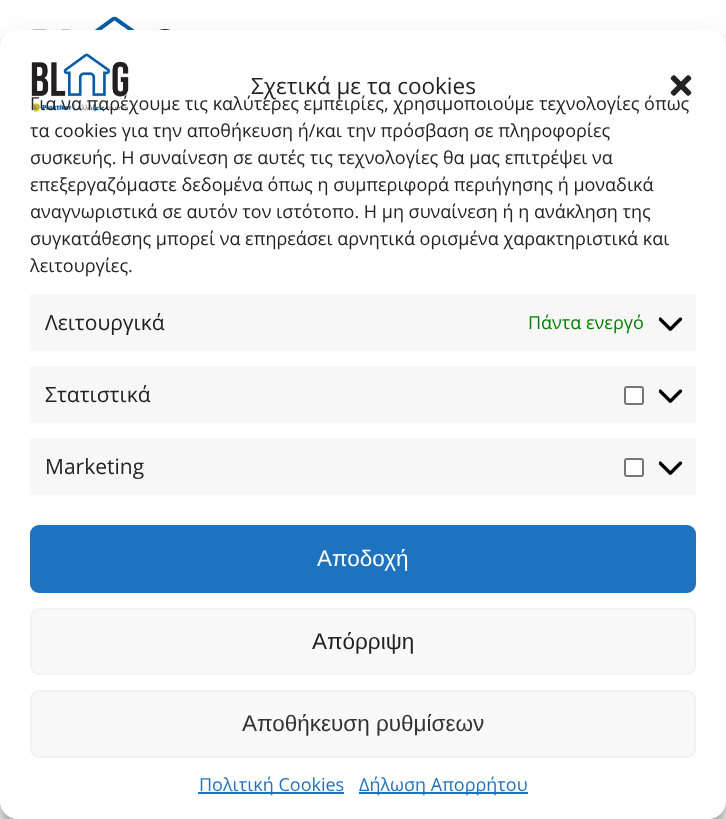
async function draw(canvas) {
	canvas.width = 726;
	canvas.height = 819;
	const c = canvas.getContext('2d');
	c.miterLimit = 4;
	c.fontKerning = 'normal';
	async function loadImage(src) {
		const img = new Image();
		img.src = src;
		await img.decode();
		return img;
	}

	c.fillStyle = '#fff';
	c.fillRect(0, 0, 726, 819);
	c.drawImage(await loadImage('img1.png'), 32, 16, 138, 14);
	c.fillStyle = '#0000003b';
	c.filter = 'blur(4.5px)';
	c.beginPath();
	c.roundRect(0, 39, 726, 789, 18);
	c.fill();
	c.filter = 'none';
	c.fillStyle = '#00000030';
	c.filter = 'blur(15px)';
	c.beginPath();
	c.roundRect(0, 45, 726, 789, 18);
	c.fill();
	c.filter = 'none';
	c.fillStyle = '#fff';
	c.beginPath();
	c.roundRect(0, 30, 726, 789, 18);
	c.fill();
	c.drawImage(await loadImage('img2.png'), 31, 53, 98, 59);
	c.font = '22.5px Open Sans';
	c.fillStyle = '#222';
	c.fillText('Σχετικά με τα cookies', 251, 94);
	c.drawImage(await loadImage('img3.png'), 670, 75, 22, 21);
	c.font = '18px Open Sans';
	for (const [text, x, y] of [
		['Για να παρέχουμε τις καλύτερες εμπειρίες, χρησιμοποιούμε τεχνολογίες όπως', 30, 110],
		['τα cookies για την αποθήκευση ή/και την πρόσβαση σε πληροφορίες', 30, 137],
		['συσκευής. Η συναίνεση σε αυτές τις τεχνολογίες θα μας επιτρέψει να', 30, 164],
		['επεξεργαζόμαστε δεδομένα όπως η συμπεριφορά περιήγησης ή μοναδικά', 30, 191],
		['αναγνωριστικά σε αυτόν τον ιστότοπο. Η μη συναίνεση ή η ανάκληση της', 30, 218],
		['συγκατάθεσης μπορεί να επηρεάσει αρνητικά ορισμένα χαρακτηριστικά και', 30, 245],
		['λειτουργίες.', 30, 272],
	]) {
		c.fillText(text, x, y);
	}
	c.fillStyle = '#f7f7f7';
	c.fillRect(30, 294, 666, 57);
	c.font = '21px Open Sans';
	c.fillStyle = '#222';
	c.fillText('Λειτουργικά', 45, 330);
	c.font = '18px Open Sans';
	c.fillStyle = '#008000';
	c.fillText('Πάντα ενεργό', 528, 329);
	c.drawImage(await loadImage('img4.png'), 659, 317, 24, 14);
	c.fillStyle = '#f7f7f7';
	c.fillRect(30, 366, 666, 57);
	c.font = '21px Open Sans';
	c.fillStyle = '#222';
	c.fillText('Στατιστικά', 45, 402);
	c.fillStyle = '#fff';
	c.beginPath();
	c.roundRect(625, 387, 18, 17, 2);
	c.fill();
	c.strokeStyle = '#767676';
	c.lineWidth = 2;
	c.stroke();
	c.drawImage(await loadImage('img4.png'), 659, 389, 24, 14);
	c.fillStyle = '#f7f7f7';
	c.fillRect(30, 438, 666, 57);
	c.fillStyle = '#222';
	c.fillText('Marketing', 45, 474);
	c.fillStyle = '#fff';
	c.beginPath();
	c.roundRect(625, 459, 18, 17, 2);
	c.fill();
	c.stroke();
	c.drawImage(await loadImage('img4.png'), 659, 461, 24, 14);
	c.fillStyle = '#1e73be';
	c.beginPath();
	c.roundRect(31, 526, 664, 66, 8);
	c.fill();
	c.strokeStyle = '#1e73be';
	c.stroke();
	c.font = '22.5px Liberation Sans';
	c.fillStyle = '#fff';
	c.fillText('Αποδοχή', 317, 566);
	c.fillStyle = '#f9f9f9';
	c.beginPath();
	c.roundRect(31, 609, 664, 65, 8);
	c.fill();
	c.strokeStyle = '#f2f2f2';
	c.stroke();
	c.fillStyle = '#222';
	c.fillText('Απόρριψη', 312, 649);
	c.fillStyle = '#f9f9f9';
	c.beginPath();
	c.roundRect(31, 691, 664, 66, 8);
	c.fill();
	c.stroke();
	c.fillStyle = '#333';
	c.fillText('Αποθήκευση ρυθμίσεων', 242, 731);
	c.fillStyle = '#1e73be';
	c.fillRect(198, 792, 146, 2);
	c.font = '18px Open Sans';
	c.fillText('Πολιτική Cookies', 199, 791);
	c.fillRect(359, 792, 169, 2);
	c.fillText('Δήλωση Απορρήτου', 359, 791);
}

draw(document.querySelector('canvas'));
